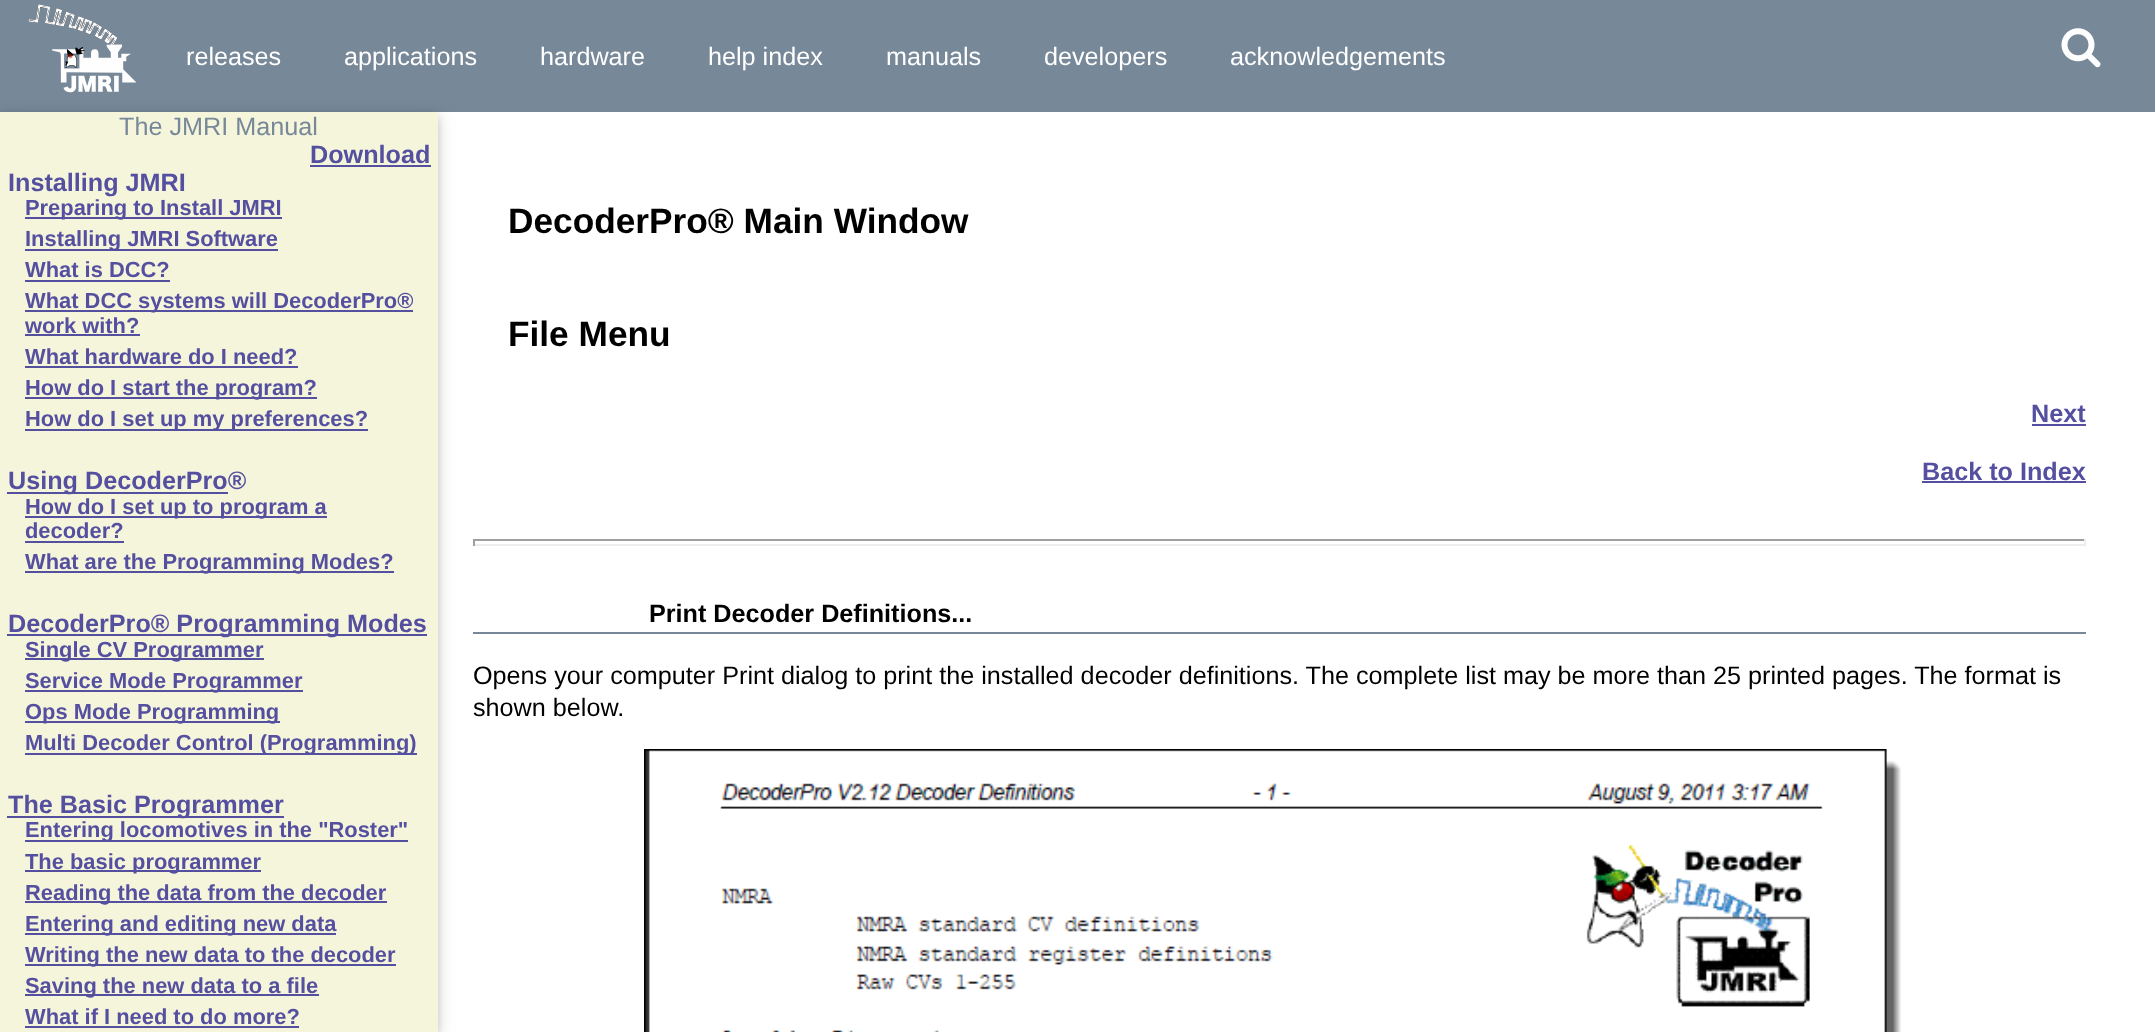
async function draw(canvas) {
	canvas.width = 2155;
	canvas.height = 1032;
	const c = canvas.getContext('2d');
	c.miterLimit = 4;
	c.fontKerning = 'normal';
	async function loadImage(src) {
		const img = new Image();
		img.src = src;
		await img.decode();
		return img;
	}

	c.fillStyle = '#fff';
	c.fillRect(0, 0, 2155, 1032);
	c.fillStyle = '#789';
	c.fillRect(0, 0, 2155, 112);
	c.drawImage(await loadImage('img1.png'), 28, 4, 109, 89);
	c.font = '25.2px Liberation Sans';
	c.fillStyle = '#fff';
	for (const [text, x, y] of [
		['releases', 186, 65],
		['applications', 344, 65],
		['hardware', 540, 65],
		['help index', 708, 65],
		['manuals', 886, 65],
		['developers', 1044, 65],
		['acknowledgements', 1230, 65],
	]) {
		c.fillText(text, x, y);
	}
	c.drawImage(await loadImage('img2.png'), 2061, 28, 40, 40);
	c.fillStyle = '#0000001f';
	c.filter = 'blur(9px)';
	c.beginPath();
	c.rect(0, 116, 438, 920);
	c.fill();
	c.filter = 'none';
	c.fillStyle = '#00000029';
	c.filter = 'blur(4.5px)';
	c.beginPath();
	c.rect(0, 116, 438, 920);
	c.fill();
	c.filter = 'none';
	c.fillStyle = '#f5f5dc';
	c.fillRect(0, 112, 438, 920);
	c.fillStyle = '#789';
	c.fillText('The JMRI Manual', 119, 135);
	c.font = 'bold 25.2px Liberation Sans';
	c.fillStyle = '#554fa0';
	c.fillText('Download', 310, 163);
	c.fillRect(310, 165, 121, 2);
	c.fillText('Installing JMRI', 8, 191);
	c.fillRect(25, 217, 257, 2);
	c.font = 'bold 21.9px Liberation Sans';
	c.fillText('Preparing to Install JMRI', 25, 215);
	c.fillRect(25, 249, 253, 2);
	c.fillText('Installing JMRI Software', 25, 246);
	c.fillText('What is DCC?', 25, 277);
	c.fillRect(25, 280, 145, 2);
	c.fillRect(25, 310, 388, 2);
	c.fillText('What DCC systems will DecoderPro®', 25, 308);
	c.fillText('work with?', 25, 333);
	c.fillRect(25, 334, 115, 2);
	c.fillText('What hardware do I need?', 25, 364);
	c.fillRect(25, 366, 273, 2);
	c.fillRect(25, 397, 292, 2);
	c.fillText('How do I start the program?', 25, 395);
	c.fillRect(25, 429, 343, 2);
	c.fillText('How do I set up my preferences?', 25, 426);
	c.fillRect(7, 492, 221, 2);
	c.font = 'bold 25.2px Liberation Sans';
	c.fillText('Using DecoderPro®', 8, 489);
	c.fillRect(25, 516, 302, 2);
	c.font = 'bold 21.9px Liberation Sans';
	c.fillText('How do I set up to program a', 25, 514);
	c.fillText('decoder?', 25, 538);
	c.fillRect(25, 541, 99, 2);
	c.fillRect(25, 571, 369, 2);
	c.fillText('What are the Programming Modes?', 25, 569);
	c.fillRect(7, 634, 420, 2);
	c.font = 'bold 25.2px Liberation Sans';
	c.fillText('DecoderPro® Programming Modes', 8, 632);
	c.fillRect(25, 658, 239, 2);
	c.font = 'bold 21.9px Liberation Sans';
	c.fillText('Single CV Programmer', 25, 657);
	c.fillRect(25, 690, 278, 2);
	c.fillText('Service Mode Programmer', 25, 688);
	c.fillRect(25, 721, 255, 2);
	c.fillText('Ops Mode Programming', 25, 719);
	c.fillRect(25, 753, 392, 2);
	c.fillText('Multi Decoder Control (Programming)', 25, 750);
	c.fillRect(7, 816, 277, 2);
	c.font = 'bold 25.2px Liberation Sans';
	c.fillText('The Basic Programmer', 8, 813);
	c.fillRect(25, 840, 383, 2);
	c.font = 'bold 21.9px Liberation Sans';
	c.fillText('Entering locomotives in the "Roster"', 25, 837);
	c.fillRect(25, 870, 236, 2);
	c.fillText('The basic programmer', 25, 869);
	c.fillRect(25, 901, 362, 2);
	c.fillText('Reading the data from the decoder', 25, 900);
	c.fillRect(25, 933, 311, 2);
	c.fillText('Entering and editing new data', 25, 931);
	c.fillRect(25, 964, 371, 2);
	c.fillText('Writing the new data to the decoder', 25, 962);
	c.fillRect(25, 994, 294, 2);
	c.fillText('Saving the new data to a file', 25, 993);
	c.fillText('What if I need to do more?', 25, 1024);
	c.fillRect(25, 1026, 274, 2);
	c.font = 'bold 35.25px Liberation Sans';
	c.fillStyle = '#000';
	c.fillText('DecoderPro® Main Window', 508, 233);
	c.fillText('File Menu', 508, 346);
	c.font = 'bold 25.2px Liberation Sans';
	c.fillStyle = '#554fa0';
	c.fillText('Next', 2031, 422);
	c.fillRect(2032, 424, 54, 2);
	c.fillText('Back to Index', 1922, 480);
	for (const [x, y, w, h, color] of [
		[1922, 481, 164, 2, '#554fa0'],
		[473, 539, 1613, 2, '#9f9f9f'],
		[2084, 539, 2, 7, '#eee'],
		[473, 544, 1613, 2, '#eee'],
		[473, 539, 2, 7, '#9f9f9f'],
		[473, 632, 1613, 2, '#789'],
	]) {
		c.fillStyle = color;
		c.fillRect(x, y, w, h);
	}
	c.fillStyle = '#000';
	c.fillText('Print Decoder Definitions...', 649, 622);
	c.font = '25.2px Liberation Sans';
	c.fillText('Opens your computer Print dialog to print the installed decoder definitions. The complete list may be more than 25 printed pages. The format is', 473, 684);
	c.fillText('shown below.', 473, 716);
	c.drawImage(await loadImage('img3.png'), 644, 749, 1257, 283);
}

draw(document.querySelector('canvas'));
